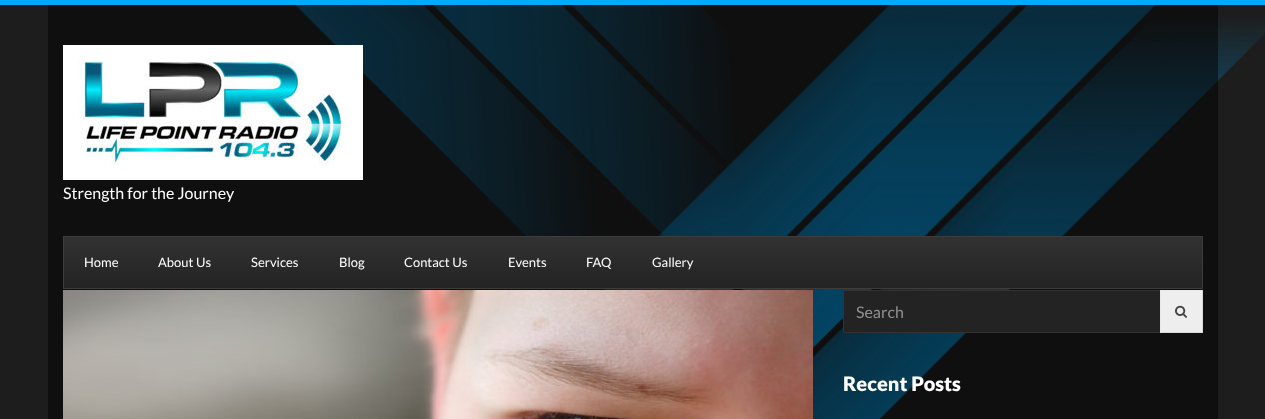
async function draw(canvas) {
	canvas.width = 1265;
	canvas.height = 419;
	const c = canvas.getContext('2d');
	c.miterLimit = 4;
	c.fontKerning = 'normal';
	async function loadImage(src) {
		const img = new Image();
		img.src = src;
		await img.decode();
		return img;
	}
	let gradient;

	c.fillStyle = '#1d1d1d';
	c.fillRect(0, 0, 1265, 419);
	c.fillStyle = '#0f0f0f';
	c.fillRect(48, 5, 1170, 414);
	c.drawImage(await loadImage('img1.png'), 295, 5, 970, 414);
	c.fillStyle = '#00abfe';
	c.fillRect(0, 0, 1265, 5);
	c.drawImage(await loadImage('img2.png'), 63, 45, 300, 135);
	c.font = '16px Lato';
	c.fillStyle = '#fff';
	c.fillText('Strength for the Journey', 63, 199);
	gradient = c.createLinearGradient(633, 237, 633, 288);
	gradient.addColorStop(0, '#323232');
	gradient.addColorStop(1, '#232323');
	c.fillStyle = gradient;
	c.fillRect(64, 237, 1138, 51);
	c.strokeStyle = '#3c3c3c';
	c.strokeRect(63.5, 236.5, 1139, 52);
	c.font = '13px Lato';
	c.fillStyle = '#fff';
	for (const [text, x, y] of [
		['Home', 84, 267],
		['About Us', 158, 267],
		['Services', 251, 267],
		['Blog', 339, 267],
		['Contact Us', 404, 267],
		['Events', 508, 267],
		['FAQ', 586, 267],
		['Gallery', 652, 267],
	]) {
		c.fillText(text, x, y);
	}
	c.drawImage(await loadImage('img3.png'), 63, 290, 750, 129);
	c.fillStyle = '#232323';
	c.beginPath();
	c.roundRect(843, 290, 360, 43, 2);
	c.fill();
	c.beginPath();
	c.roundRect(843.5, 290.5, 359, 42, 1.5);
	c.strokeStyle = '#8181812e';
	c.stroke();
	c.font = '16px Lato';
	c.fillStyle = '#919191';
	c.fillText('Search', 856, 318);
	for (const [x, y, w, h, color] of [
		[1161, 291, 41, 41, '#eee'],
		[1160, 290, 43, 1, '#e9e9e9'],
		[1202, 290, 1, 43, '#d8d8d8'],
		[1160, 332, 43, 1, '#d8d8d8'],
		[1160, 290, 1, 43, '#e9e9e9'],
	]) {
		c.fillStyle = color;
		c.fillRect(x, y, w, h);
	}
	c.drawImage(await loadImage('img4.png'), 1175, 305, 12, 13);
	c.font = '900 20px Lato';
	c.fillStyle = '#fff';
	c.fillText('Recent Posts', 843, 391);
}

draw(document.querySelector('canvas'));
